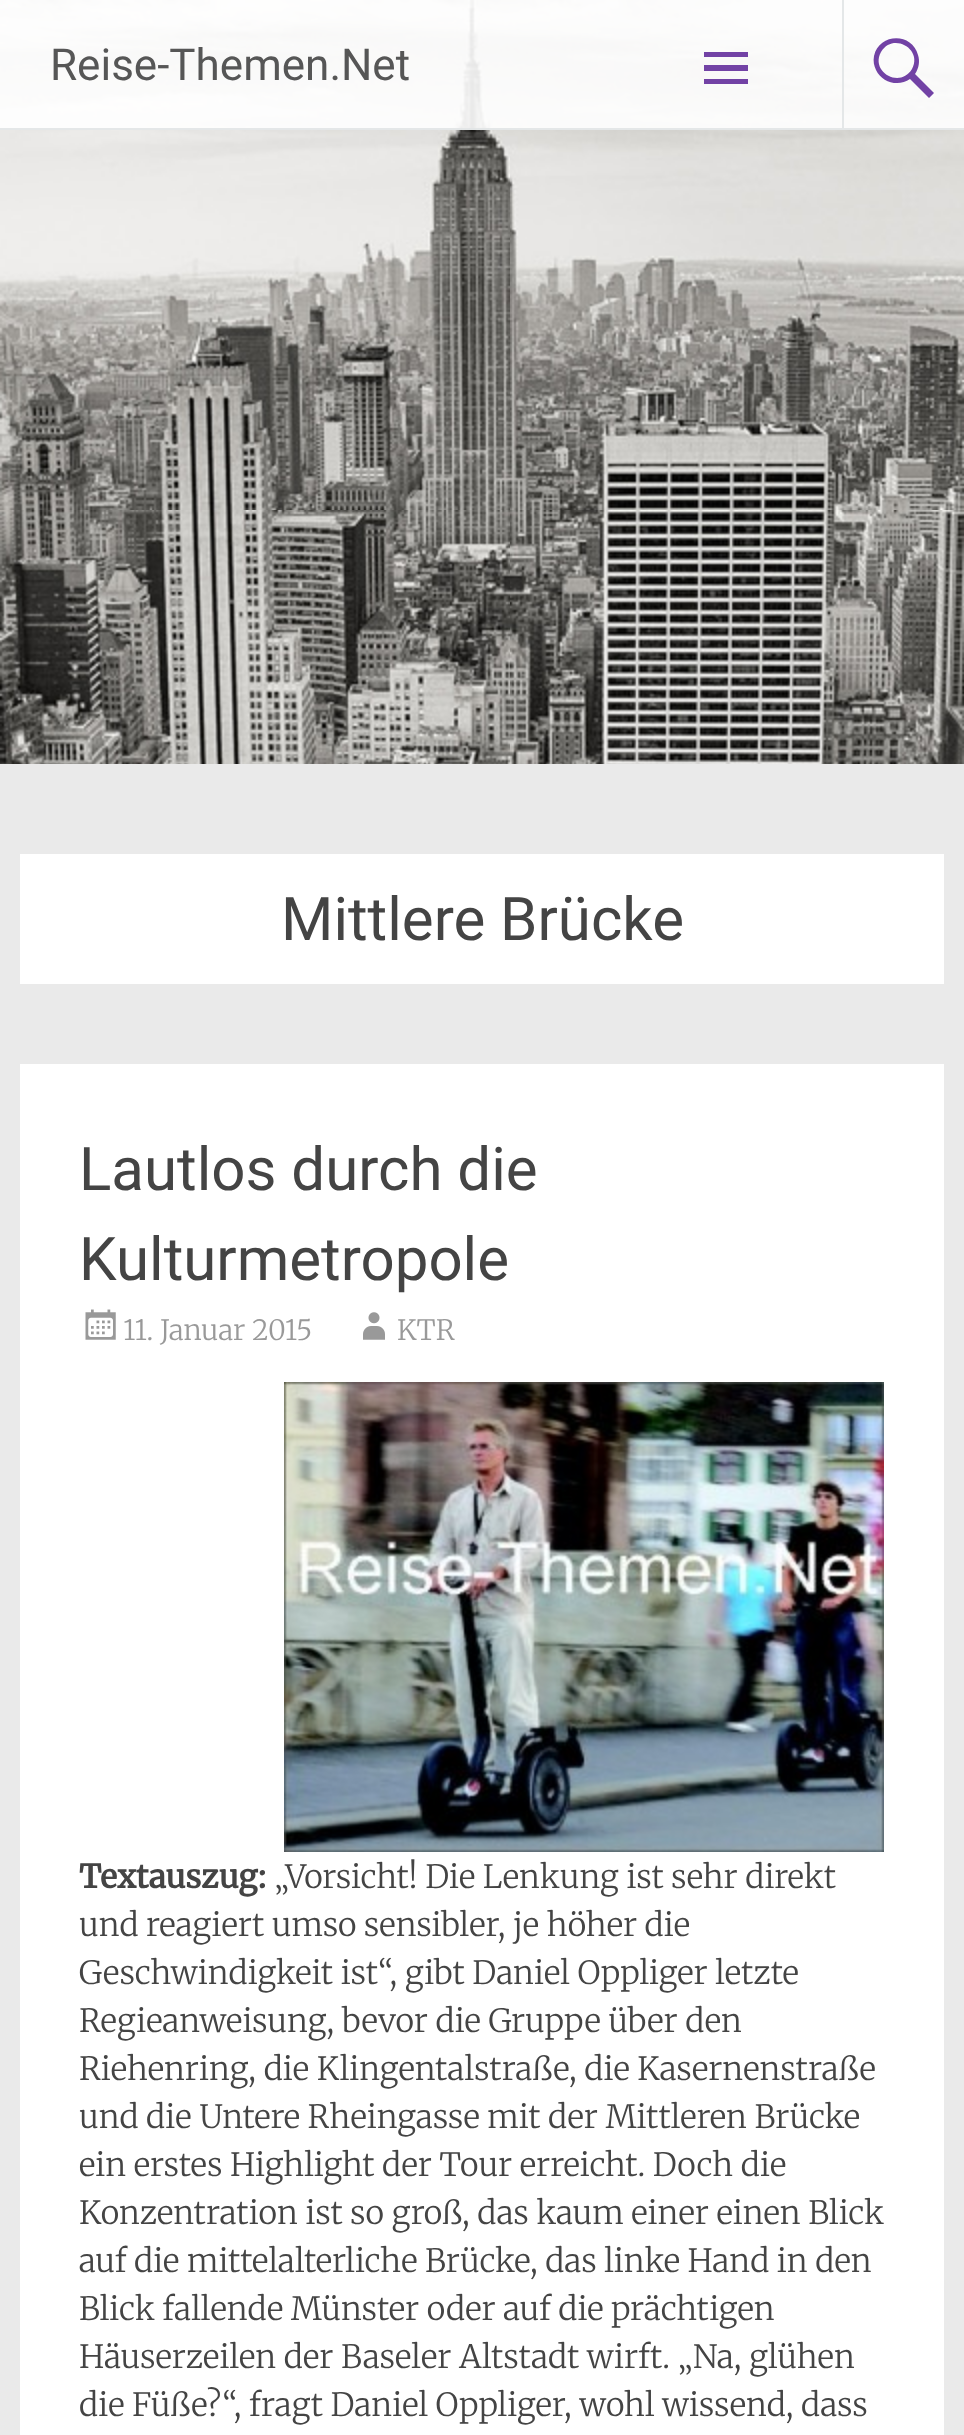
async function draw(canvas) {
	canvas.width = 964;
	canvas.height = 2435;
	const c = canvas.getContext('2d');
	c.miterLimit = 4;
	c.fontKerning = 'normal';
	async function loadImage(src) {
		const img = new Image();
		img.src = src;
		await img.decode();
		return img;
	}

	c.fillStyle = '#fff';
	c.fillRect(0, 0, 964, 2435);
	c.drawImage(await loadImage('img1.png'), 0, 0, 964, 764);
	c.fillStyle = '#ffffffe6';
	c.fillRect(0, 0, 964, 130);
	c.fillStyle = '#e1e4e6e6';
	c.fillRect(0, 128, 964, 2);
	c.font = '44px Roboto';
	c.fillStyle = '#565656';
	c.fillText('Reise-Themen.Net', 50, 80);
	c.fillStyle = '#632e9be6';
	c.beginPath();
	c.moveTo(704, 84);
	c.lineTo(704, 79);
	c.lineTo(748, 79);
	c.lineTo(748, 84);
	c.closePath();
	c.moveTo(704, 52);
	c.lineTo(748, 52);
	c.lineTo(748, 57);
	c.lineTo(704, 57);
	c.closePath();
	c.moveTo(704, 71);
	c.lineTo(704, 65);
	c.lineTo(748, 65);
	c.lineTo(748, 71);
	c.closePath();
	c.fill();
	c.fillStyle = '#e1e4e6e6';
	c.fillRect(842, 0, 2, 128);
	c.fillStyle = '#632e9be6';
	c.beginPath();
	c.moveTo(934, 93);
	c.lineTo(929, 98);
	c.lineTo(910, 79);
	c.bezierCurveTo(899, 87, 882, 83, 876, 70);
	c.bezierCurveTo(874, 66, 873, 61, 874, 56);
	c.bezierCurveTo(879, 33, 912, 32, 918, 55);
	c.bezierCurveTo(920, 61, 919, 68, 915, 74);
	c.closePath();
	c.moveTo(881, 52);
	c.bezierCurveTo(870, 72, 900, 89, 912, 69);
	c.bezierCurveTo(923, 49, 893, 32, 881, 52);
	c.closePath();
	c.fill();
	c.fillStyle = '#eaeaea';
	c.fillRect(0, 764, 964, 1671);
	c.fillStyle = '#fff';
	c.fillRect(20, 854, 924, 130);
	c.font = '60px Roboto';
	c.fillStyle = '#444';
	c.fillText('Mittlere Brücke', 281, 940);
	c.fillStyle = '#fff';
	c.fillRect(20, 1064, 924, 1371);
	c.fillStyle = '#444';
	c.fillText('Lautlos durch die', 79, 1190);
	c.fillText('Kulturmetropole', 79, 1280);
	c.drawImage(await loadImage('img2.png'), 85, 1309, 31, 31);
	c.font = '300 28px Merriweather';
	c.fillStyle = '#999';
	c.fillText('11. Januar 2015', 123, 1340);
	c.drawImage(await loadImage('img3.png'), 363, 1312, 22, 28);
	c.fillText('KTR', 397, 1340);
	c.drawImage(await loadImage('img4.png'), 284, 1382, 600, 470);
	c.font = 'bold 32px Merriweather';
	c.fillStyle = '#444';
	c.fillText('Textauszug:', 79, 1888);
	c.font = '300 32px Merriweather';
	for (const [text, x, y] of [
		['„Vorsicht! Die Lenkung ist sehr direkt', 274, 1888],
		['und reagiert umso sensibler, je höher die', 79, 1936],
		['Geschwindigkeit ist“, gibt Daniel Oppliger letzte', 79, 1984],
		['Regieanweisung, bevor die Gruppe über den', 79, 2032],
		['Riehenring, die Klingentalstraße, die Kasernenstraße', 79, 2080],
		['und die Untere Rheingasse mit der Mittleren Brücke', 79, 2128],
		['ein erstes Highlight der Tour erreicht. Doch die', 79, 2176],
		['Konzentration ist so groß, das kaum einer einen Blick', 79, 2224],
		['auf die mittelalterliche Brücke, das linke Hand in den', 79, 2272],
		['Blick fallende Münster oder auf die prächtigen', 79, 2320],
		['Häuserzeilen der Baseler Altstadt wirft. „Na, glühen', 79, 2368],
		['die Füße?“, fragt Daniel Oppliger, wohl wissend, dass', 79, 2416],
	]) {
		c.fillText(text, x, y);
	}
}

draw(document.querySelector('canvas'));
